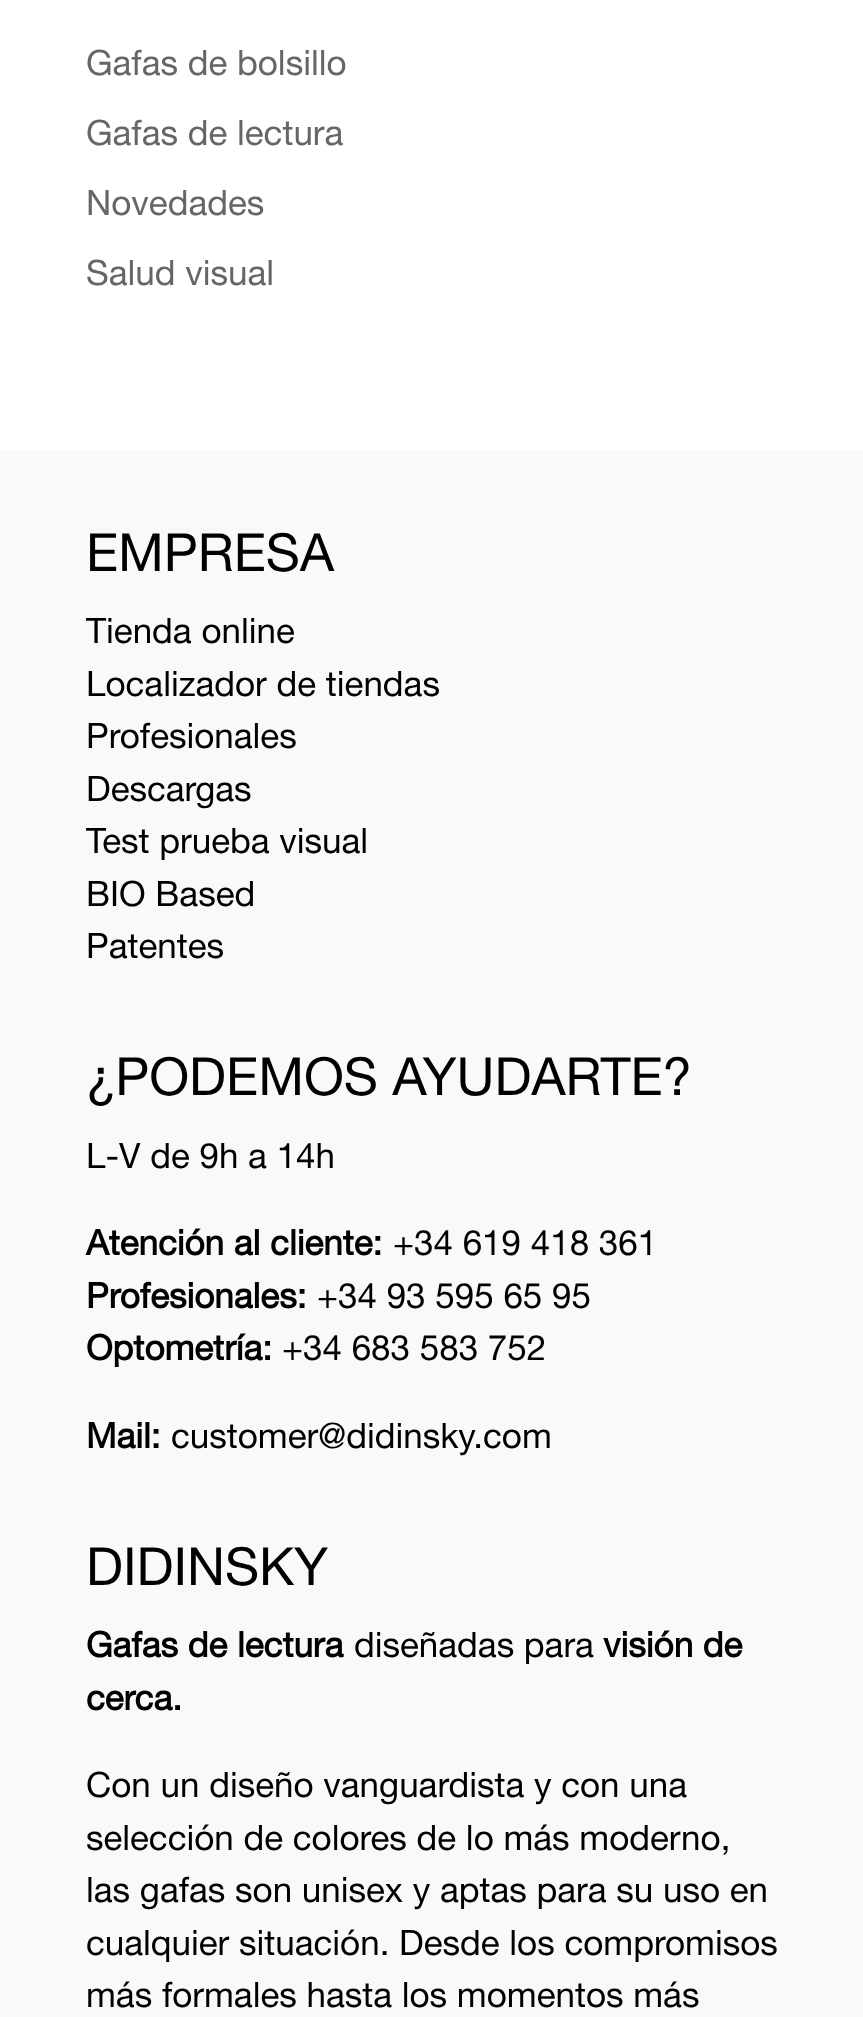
async function draw(canvas) {
	canvas.width = 863;
	canvas.height = 2017;
	const c = canvas.getContext('2d');
	c.miterLimit = 4;
	c.fontKerning = 'normal';

	c.fillStyle = '#fff';
	c.fillRect(0, 0, 863, 2017);
	c.font = '35px Helvetica Neue';
	c.fillStyle = '#666';
	for (const [text, x, y] of [
		['Gafas de bolsillo', 86, 75],
		['Gafas de lectura', 86, 145],
		['Novedades', 86, 215],
		['Salud visual', 86, 285],
	]) {
		c.fillText(text, x, y);
	}
	c.fillStyle = '#f9f9f9';
	c.fillRect(0, 450, 863, 1567);
	c.font = '52.5px Helvetica Neue';
	c.fillStyle = '#000';
	c.fillText('EMPRESA', 86, 571);
	c.font = '35px Helvetica Neue';
	for (const [text, x, y] of [
		['Tienda online', 86, 643],
		['Localizador de tiendas', 86, 696],
		['Profesionales', 86, 748],
		['Descargas', 86, 801],
		['Test prueba visual', 86, 853],
		['BIO Based', 86, 906],
		['Patentes', 86, 958],
	]) {
		c.fillText(text, x, y);
	}
	c.font = '52.5px Helvetica Neue';
	c.fillText('¿PODEMOS AYUDARTE?', 86, 1095);
	c.font = '35px Helvetica Neue';
	c.fillText('L-V de 9h a 14h', 86, 1168);
	c.font = 'bold 35px Helvetica Neue';
	c.fillText('Atención al cliente:', 86, 1255);
	c.font = '35px Helvetica Neue';
	c.fillText('+34 619 418 361', 393, 1255);
	c.font = 'bold 35px Helvetica Neue';
	c.fillText('Profesionales:', 86, 1308);
	c.font = '35px Helvetica Neue';
	c.fillText('+34 93 595 65 95', 317, 1308);
	c.font = 'bold 35px Helvetica Neue';
	c.fillText('Optometría:', 86, 1360);
	c.font = '35px Helvetica Neue';
	c.fillText('+34 683 583 752', 282, 1360);
	c.font = 'bold 35px Helvetica Neue';
	c.fillText('Mail:', 86, 1448);
	c.font = '35px Helvetica Neue';
	c.fillText('customer@didinsky.com', 171, 1448);
	c.font = '52.5px Helvetica Neue';
	c.fillText('DIDINSKY', 86, 1585);
	c.font = 'bold 35px Helvetica Neue';
	c.fillText('Gafas de lectura', 86, 1657);
	c.font = '35px Helvetica Neue';
	c.fillText('diseñadas para', 354, 1657);
	c.font = 'bold 35px Helvetica Neue';
	c.fillText('visión de', 603, 1657);
	c.fillText('cerca.', 86, 1710);
	c.font = '35px Helvetica Neue';
	for (const [text, x, y] of [
		['Con un diseño vanguardista y con una', 86, 1797],
		['selección de colores de lo más moderno,', 86, 1850],
		['las gafas son unisex y aptas para su uso en', 86, 1902],
		['cualquier situación. Desde los compromisos', 86, 1955],
		['más formales hasta los momentos más', 86, 2007],
	]) {
		c.fillText(text, x, y);
	}
}

draw(document.querySelector('canvas'));
